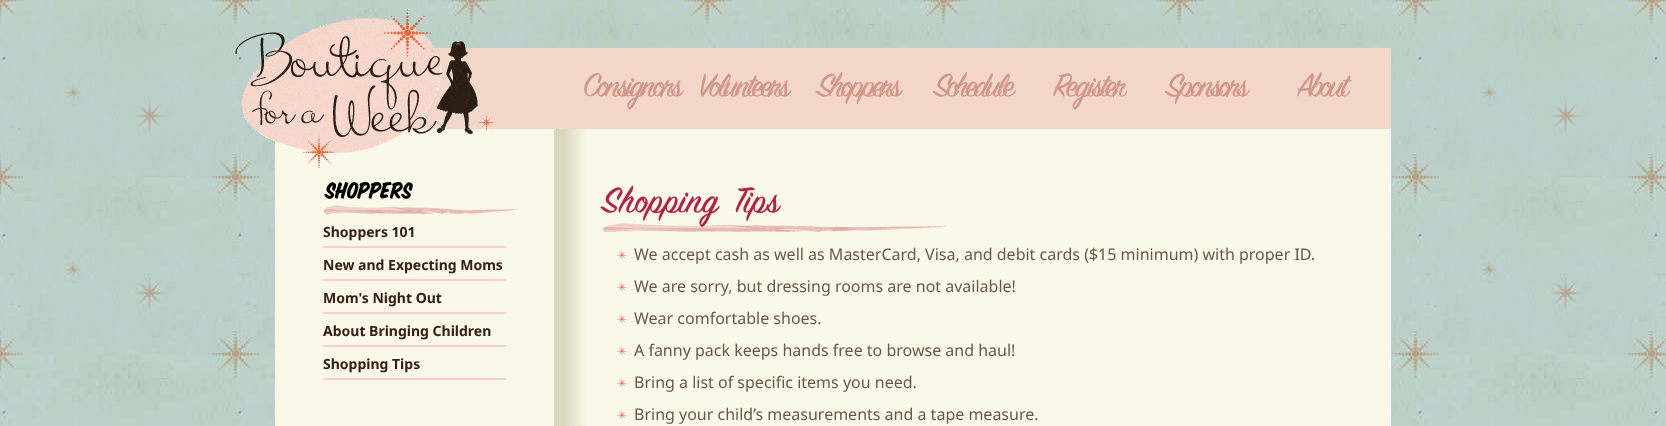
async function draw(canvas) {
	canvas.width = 1666;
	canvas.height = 426;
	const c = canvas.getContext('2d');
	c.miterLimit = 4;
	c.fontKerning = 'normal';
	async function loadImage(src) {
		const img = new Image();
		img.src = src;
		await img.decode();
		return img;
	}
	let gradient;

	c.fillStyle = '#fff';
	c.fillRect(0, 0, 1666, 426);
	c.drawImage(await loadImage('img1.png'), 0, 0, 1666, 426);
	c.fillStyle = '#f3d8ca';
	c.fillRect(275, 48, 1116, 81);
	c.fillStyle = '#faf8e8';
	c.fillRect(275, 129, 279, 297);
	c.drawImage(await loadImage('img2.png'), 235, 9, 261, 159);
	c.letterSpacing = '-2.9px';
	c.font = '36.5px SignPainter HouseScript';
	c.fillStyle = '#d3968b';
	c.fillText('Consignors', 583, 96);
	c.letterSpacing = '-2.6px';
	c.fillText('Volunteers', 699, 96);
	c.letterSpacing = '-3px';
	c.fillText('Shoppers', 817, 96);
	c.fillText('Schedule', 934, 96);
	c.letterSpacing = '-2.5px';
	c.fillText('Register', 1053, 96);
	c.letterSpacing = '-3px';
	c.fillText('Sponsors', 1166, 96);
	c.fillText('About', 1297, 96);
	c.drawImage(await loadImage('img3.png'), 323, 182, 195, 33);
	c.fillStyle = '#fcc';
	c.fillRect(323, 246, 183, 2);
	c.letterSpacing = '0px';
	c.font = 'bold 14px Noto Sans';
	c.fillStyle = '#352012';
	c.fillText('Shoppers 101', 323, 237);
	c.fillStyle = '#fcc';
	c.fillRect(323, 279, 183, 2);
	c.fillStyle = '#352012';
	c.fillText('New and Expecting Moms', 323, 270);
	c.fillStyle = '#fcc';
	c.fillRect(323, 312, 183, 2);
	c.fillStyle = '#352012';
	c.fillText('Mom\'s Night Out', 323, 303);
	c.fillStyle = '#fcc';
	c.fillRect(323, 345, 183, 2);
	c.fillStyle = '#352012';
	c.fillText('About Bringing Children', 323, 336);
	c.fillStyle = '#fcc';
	c.fillRect(323, 378, 183, 2);
	c.fillStyle = '#352012';
	c.fillText('Shopping Tips', 323, 369);
	gradient = c.createLinearGradient(554, 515, 1391, 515);
	gradient.addColorStop(0.01, '#d9d7bd');
	gradient.addColorStop(0.04, '#faf8e8');
	c.fillStyle = gradient;
	c.fillRect(554, 129, 837, 297);
	c.drawImage(await loadImage('img4.png'), 602, 221, 344, 11);
	c.wordSpacing = '7px';
	c.font = '40px SignPainter HouseScript';
	c.fillStyle = '#b62041';
	c.fillText('Shopping Tips', 602, 212);
	c.drawImage(await loadImage('img5.png'), 617, 250, 10, 10);
	c.wordSpacing = '0px';
	c.font = '16px Noto Sans';
	c.fillStyle = '#6d5647';
	c.fillText('We accept cash as well as MasterCard, Visa, and debit cards ($15 minimum) with proper ID.', 634, 260);
	c.drawImage(await loadImage('img5.png'), 617, 282, 10, 10);
	c.fillText('We are sorry, but dressing rooms are not available!', 634, 292);
	c.drawImage(await loadImage('img5.png'), 617, 314, 10, 10);
	c.fillText('Wear comfortable shoes.', 634, 324);
	c.drawImage(await loadImage('img5.png'), 617, 346, 10, 10);
	c.fillText('A fanny pack keeps hands free to browse and haul!', 634, 356);
	c.drawImage(await loadImage('img5.png'), 617, 378, 10, 10);
	c.fillText('Bring a list of specific items you need.', 634, 388);
	c.drawImage(await loadImage('img5.png'), 617, 410, 10, 10);
	c.fillText('Bring your child’s measurements and a tape measure.', 634, 420);
}

draw(document.querySelector('canvas'));
